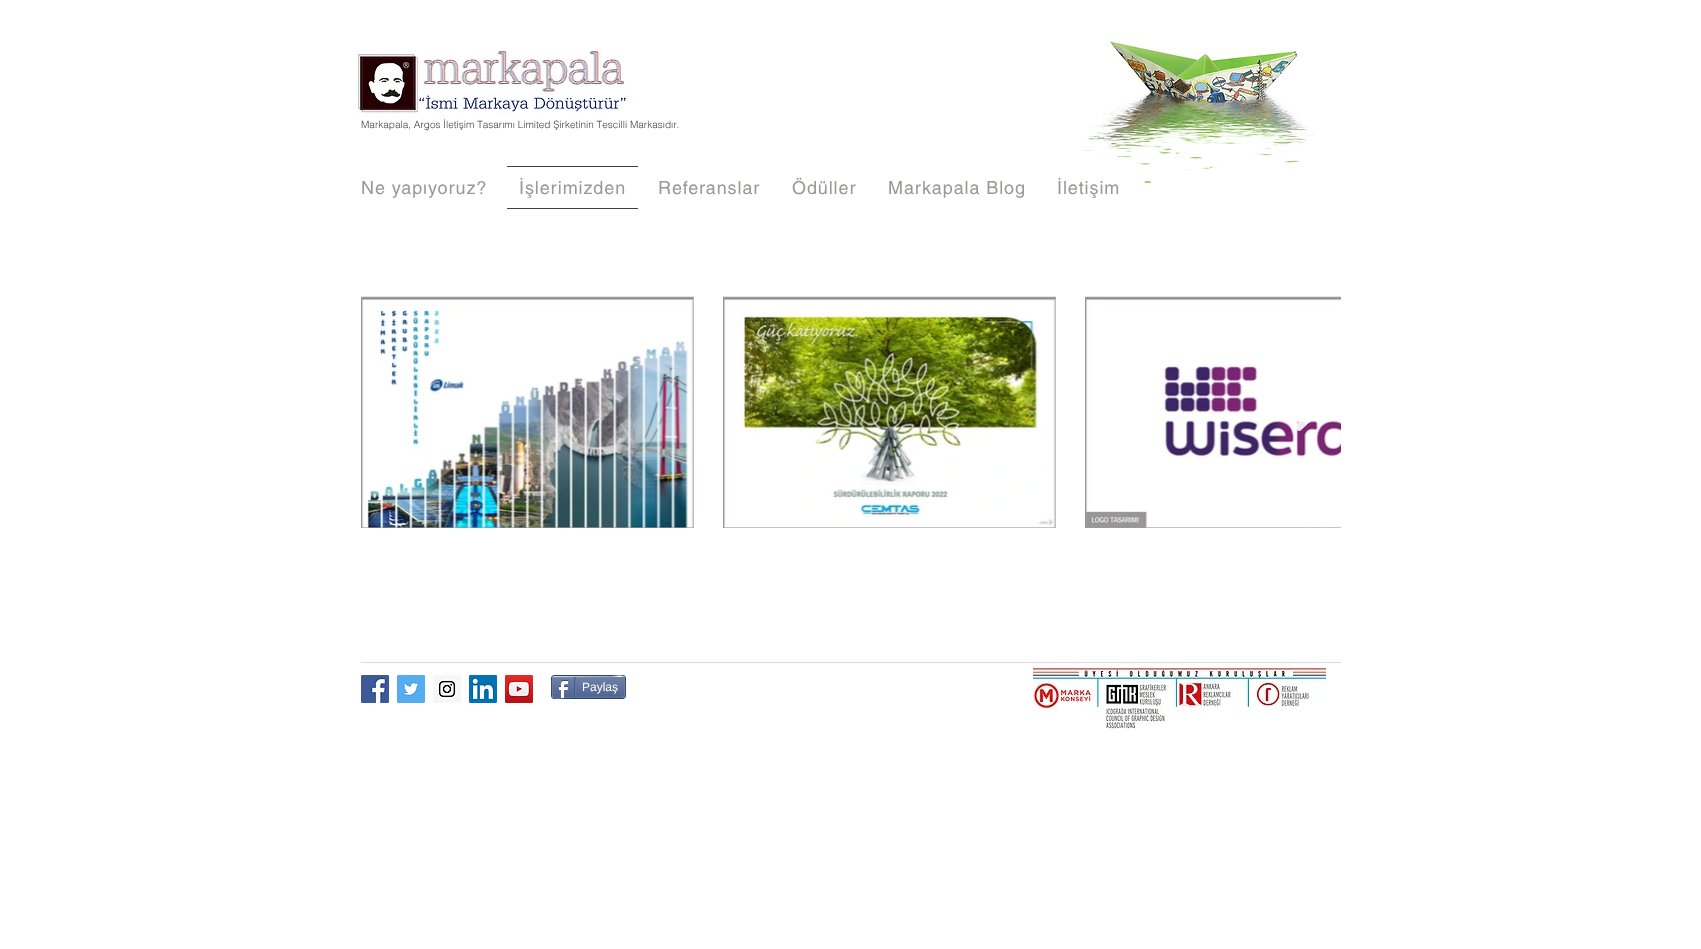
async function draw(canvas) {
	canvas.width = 1701;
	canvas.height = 949;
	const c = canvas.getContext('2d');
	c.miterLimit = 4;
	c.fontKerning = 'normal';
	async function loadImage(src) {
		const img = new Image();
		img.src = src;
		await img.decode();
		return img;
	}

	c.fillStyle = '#fff';
	c.fillRect(0, 0, 1701, 949);
	c.drawImage(await loadImage('img1.png'), 357, 50, 271, 64);
	c.drawImage(await loadImage('img2.png'), 1082, 41, 233, 142);
	c.font = '300 10px helvetica';
	c.fillStyle = '#414141';
	c.fillText('Markapala, Argos İletişim Tasarımı Limited Şirketinin Tescilli Markasıdır.', 361, 128);
	c.letterSpacing = '0.9px';
	c.font = '18px helvetica';
	c.fillStyle = '#999997';
	c.fillText('Ne yapıyoruz?', 361, 194);
	c.fillStyle = '#414141';
	c.fillRect(507, 166, 131, 1);
	c.fillRect(507, 208, 131, 1);
	c.fillStyle = '#999997';
	for (const [text, x, y] of [
		['İşlerimizden', 519, 194],
		['Referanslar', 658, 194],
		['Ödüller', 792, 194],
		['Markapala Blog', 888, 194],
		['İletişim', 1057, 194],
	]) {
		c.fillText(text, x, y);
	}
	c.fillStyle = '#e8e6e6';
	c.fillRect(361, 296, 333, 232);
	c.drawImage(await loadImage('img3.png'), 361, 297, 333, 231);
	c.fillRect(723, 296, 333, 232);
	c.drawImage(await loadImage('img4.png'), 723, 297, 333, 231);
	c.fillRect(1085, 296, 256, 1);
	c.drawImage(await loadImage('img5.png'), 1085, 297, 256, 231);
	c.drawImage(await loadImage('img6.png'), 1296, 420, 14, 11);
	c.fillStyle = '#dcdcdc';
	c.fillRect(361, 662, 980, 1);
	c.drawImage(await loadImage('img7.png'), 361, 675, 28, 28);
	c.drawImage(await loadImage('img8.png'), 397, 675, 28, 28);
	c.drawImage(await loadImage('img9.png'), 433, 675, 28, 28);
	c.drawImage(await loadImage('img10.png'), 469, 675, 28, 28);
	c.drawImage(await loadImage('img11.png'), 505, 675, 28, 28);
	c.beginPath();
	c.roundRect(551.5, 675.5, 74, 23, 2.5);
	c.strokeStyle = '#2d4565';
	c.stroke();
	c.drawImage(await loadImage('img12.png'), 552, 677, 73, 21);
	c.beginPath();
	c.moveTo(553, 677);
	c.lineTo(611.5, 676.5);
	c.bezierCurveTo(615.5, 676.5, 621, 674, 624, 677);
	c.strokeStyle = '#9aabc6';
	c.stroke();
	c.beginPath();
	c.moveTo(624, 677);
	c.bezierCurveTo(625, 677.5, 625, 696.5, 624, 697);
	c.strokeStyle = '#6f83ad';
	c.stroke();
	c.beginPath();
	c.moveTo(624, 697);
	c.lineTo(565.5, 697.5);
	c.bezierCurveTo(561.5, 697.5, 556, 700, 553, 697);
	c.strokeStyle = '#6176a3';
	c.stroke();
	c.beginPath();
	c.moveTo(553, 697);
	c.bezierCurveTo(552, 696.5, 552, 677.5, 553, 677);
	c.strokeStyle = '#6f83ad';
	c.stroke();
	c.drawImage(await loadImage('img13.png'), 558, 680, 10, 18);
	c.fillStyle = '#425e85';
	c.fillRect(574, 677, 1, 21);
	c.letterSpacing = '0px';
	c.font = '12px Liberation Sans';
	c.fillStyle = '#fff';
	c.fillText('Paylaş', 582, 691);
	c.fillStyle = '#6176a3';
	c.fillRect(575, 677, 1, 20);
	c.drawImage(await loadImage('img14.png'), 1033, 664, 293, 68);
}

draw(document.querySelector('canvas'));
